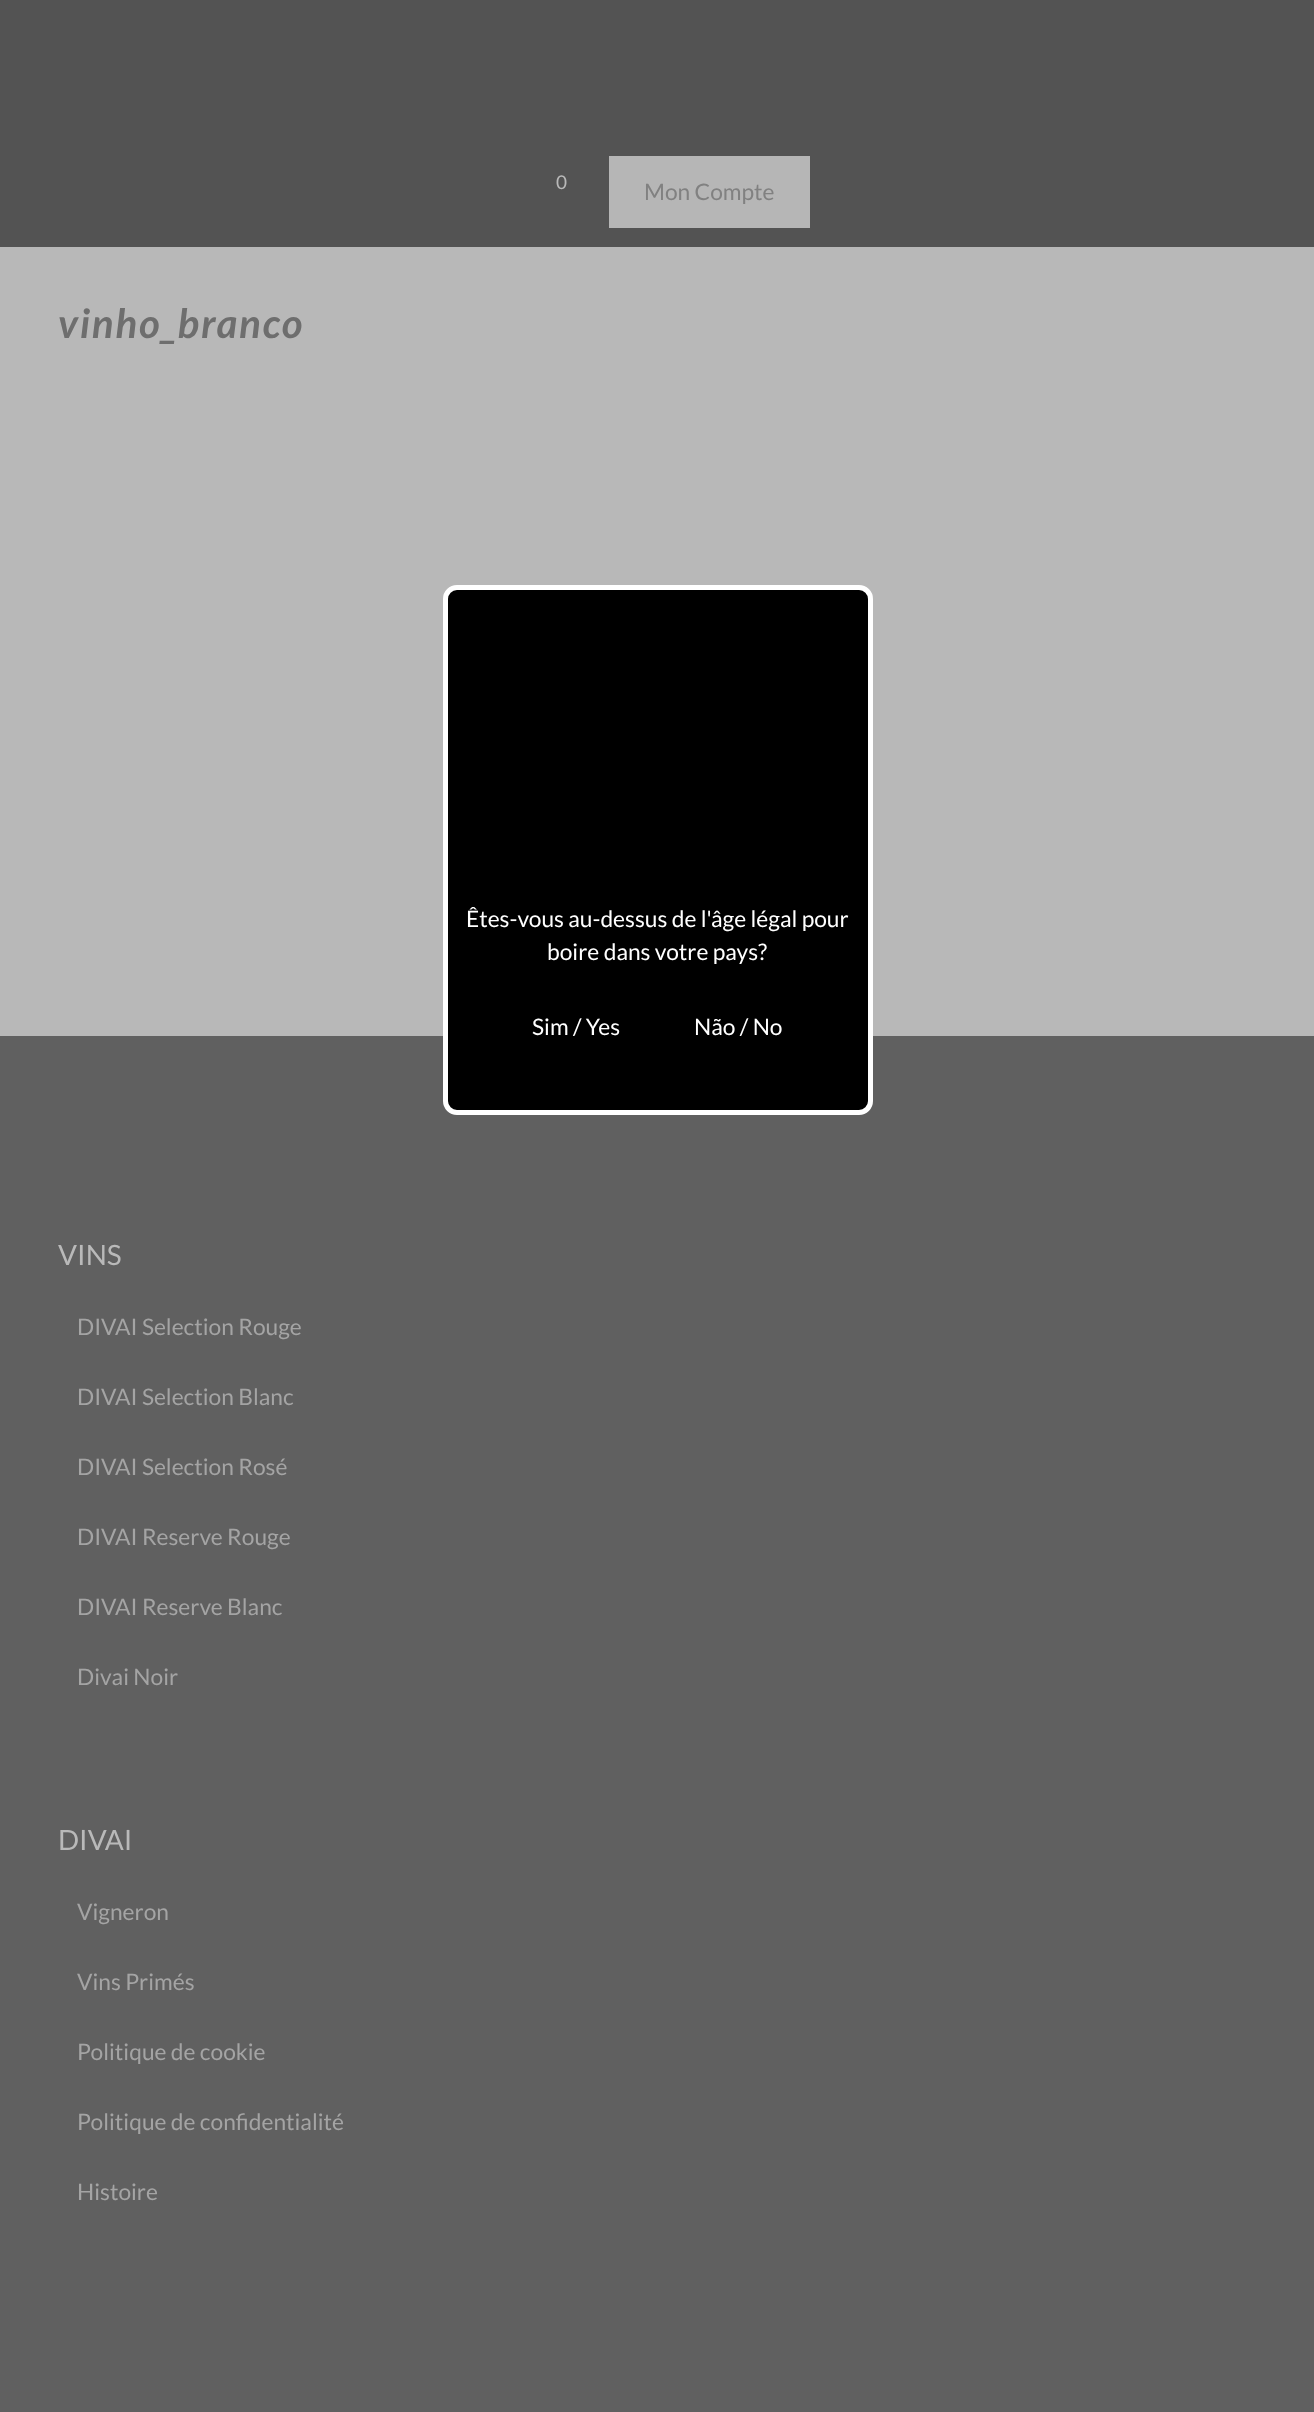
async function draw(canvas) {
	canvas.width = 1314;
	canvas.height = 2412;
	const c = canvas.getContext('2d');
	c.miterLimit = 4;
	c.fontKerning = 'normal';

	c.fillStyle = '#b8b8b8';
	c.fillRect(0, 0, 1314, 2412);
	c.fillStyle = '#535353';
	c.fillRect(0, 0, 1314, 247);
	c.font = '19px Lato';
	c.fillStyle = '#b9b9b9';
	c.fillText('0', 556, 189);
	c.fillStyle = '#b6b6b6';
	c.fillRect(609, 156, 201, 72);
	c.font = '22.75px Lato';
	c.fillStyle = '#818181';
	c.fillText('Mon Compte', 644, 200);
	c.letterSpacing = '1.75px';
	c.font = 'italic bold 40.25px Lato';
	c.fillStyle = '#6e6e6e';
	c.fillText('vinho_branco', 58, 338);
	c.fillStyle = '#606060';
	c.fillRect(0, 1036, 1314, 1376);
	c.letterSpacing = '0px';
	c.font = '28px Lato';
	c.fillStyle = '#b9b9b9';
	c.fillText('VINS', 58, 1265);
	c.font = '22.75px Lato';
	c.fillStyle = '#a4a4a4';
	for (const [text, x, y] of [
		['DIVAI Selection Rouge', 77, 1335],
		['DIVAI Selection Blanc', 77, 1405],
		['DIVAI Selection Rosé', 77, 1475],
		['DIVAI Reserve Rouge', 77, 1545],
		['DIVAI Reserve Blanc', 77, 1615],
		['Divai Noir', 77, 1685],
	]) {
		c.fillText(text, x, y);
	}
	c.font = '28px Lato';
	c.fillStyle = '#b9b9b9';
	c.fillText('DIVAI', 58, 1850);
	c.font = '22.75px Lato';
	c.fillStyle = '#a4a4a4';
	for (const [text, x, y] of [
		['Vigneron', 77, 1920],
		['Vins Primés', 77, 1990],
		['Politique de cookie', 77, 2060],
		['Politique de confidentialité', 77, 2130],
		['Histoire', 77, 2200],
	]) {
		c.fillText(text, x, y);
	}
	c.fillStyle = '#000';
	c.beginPath();
	c.roundRect(445.5, 587.5, 425, 525, 11.5);
	c.fill();
	c.strokeStyle = '#fff';
	c.lineWidth = 5;
	c.stroke();
	c.fillStyle = '#fff';
	for (const [text, x, y] of [
		['Êtes-vous au-dessus de l\'âge légal pour', 466, 927],
		['boire dans votre pays?', 547, 960],
		['Sim / Yes', 532, 1035],
		['Não / No', 694, 1035],
	]) {
		c.fillText(text, x, y);
	}
}

draw(document.querySelector('canvas'));
